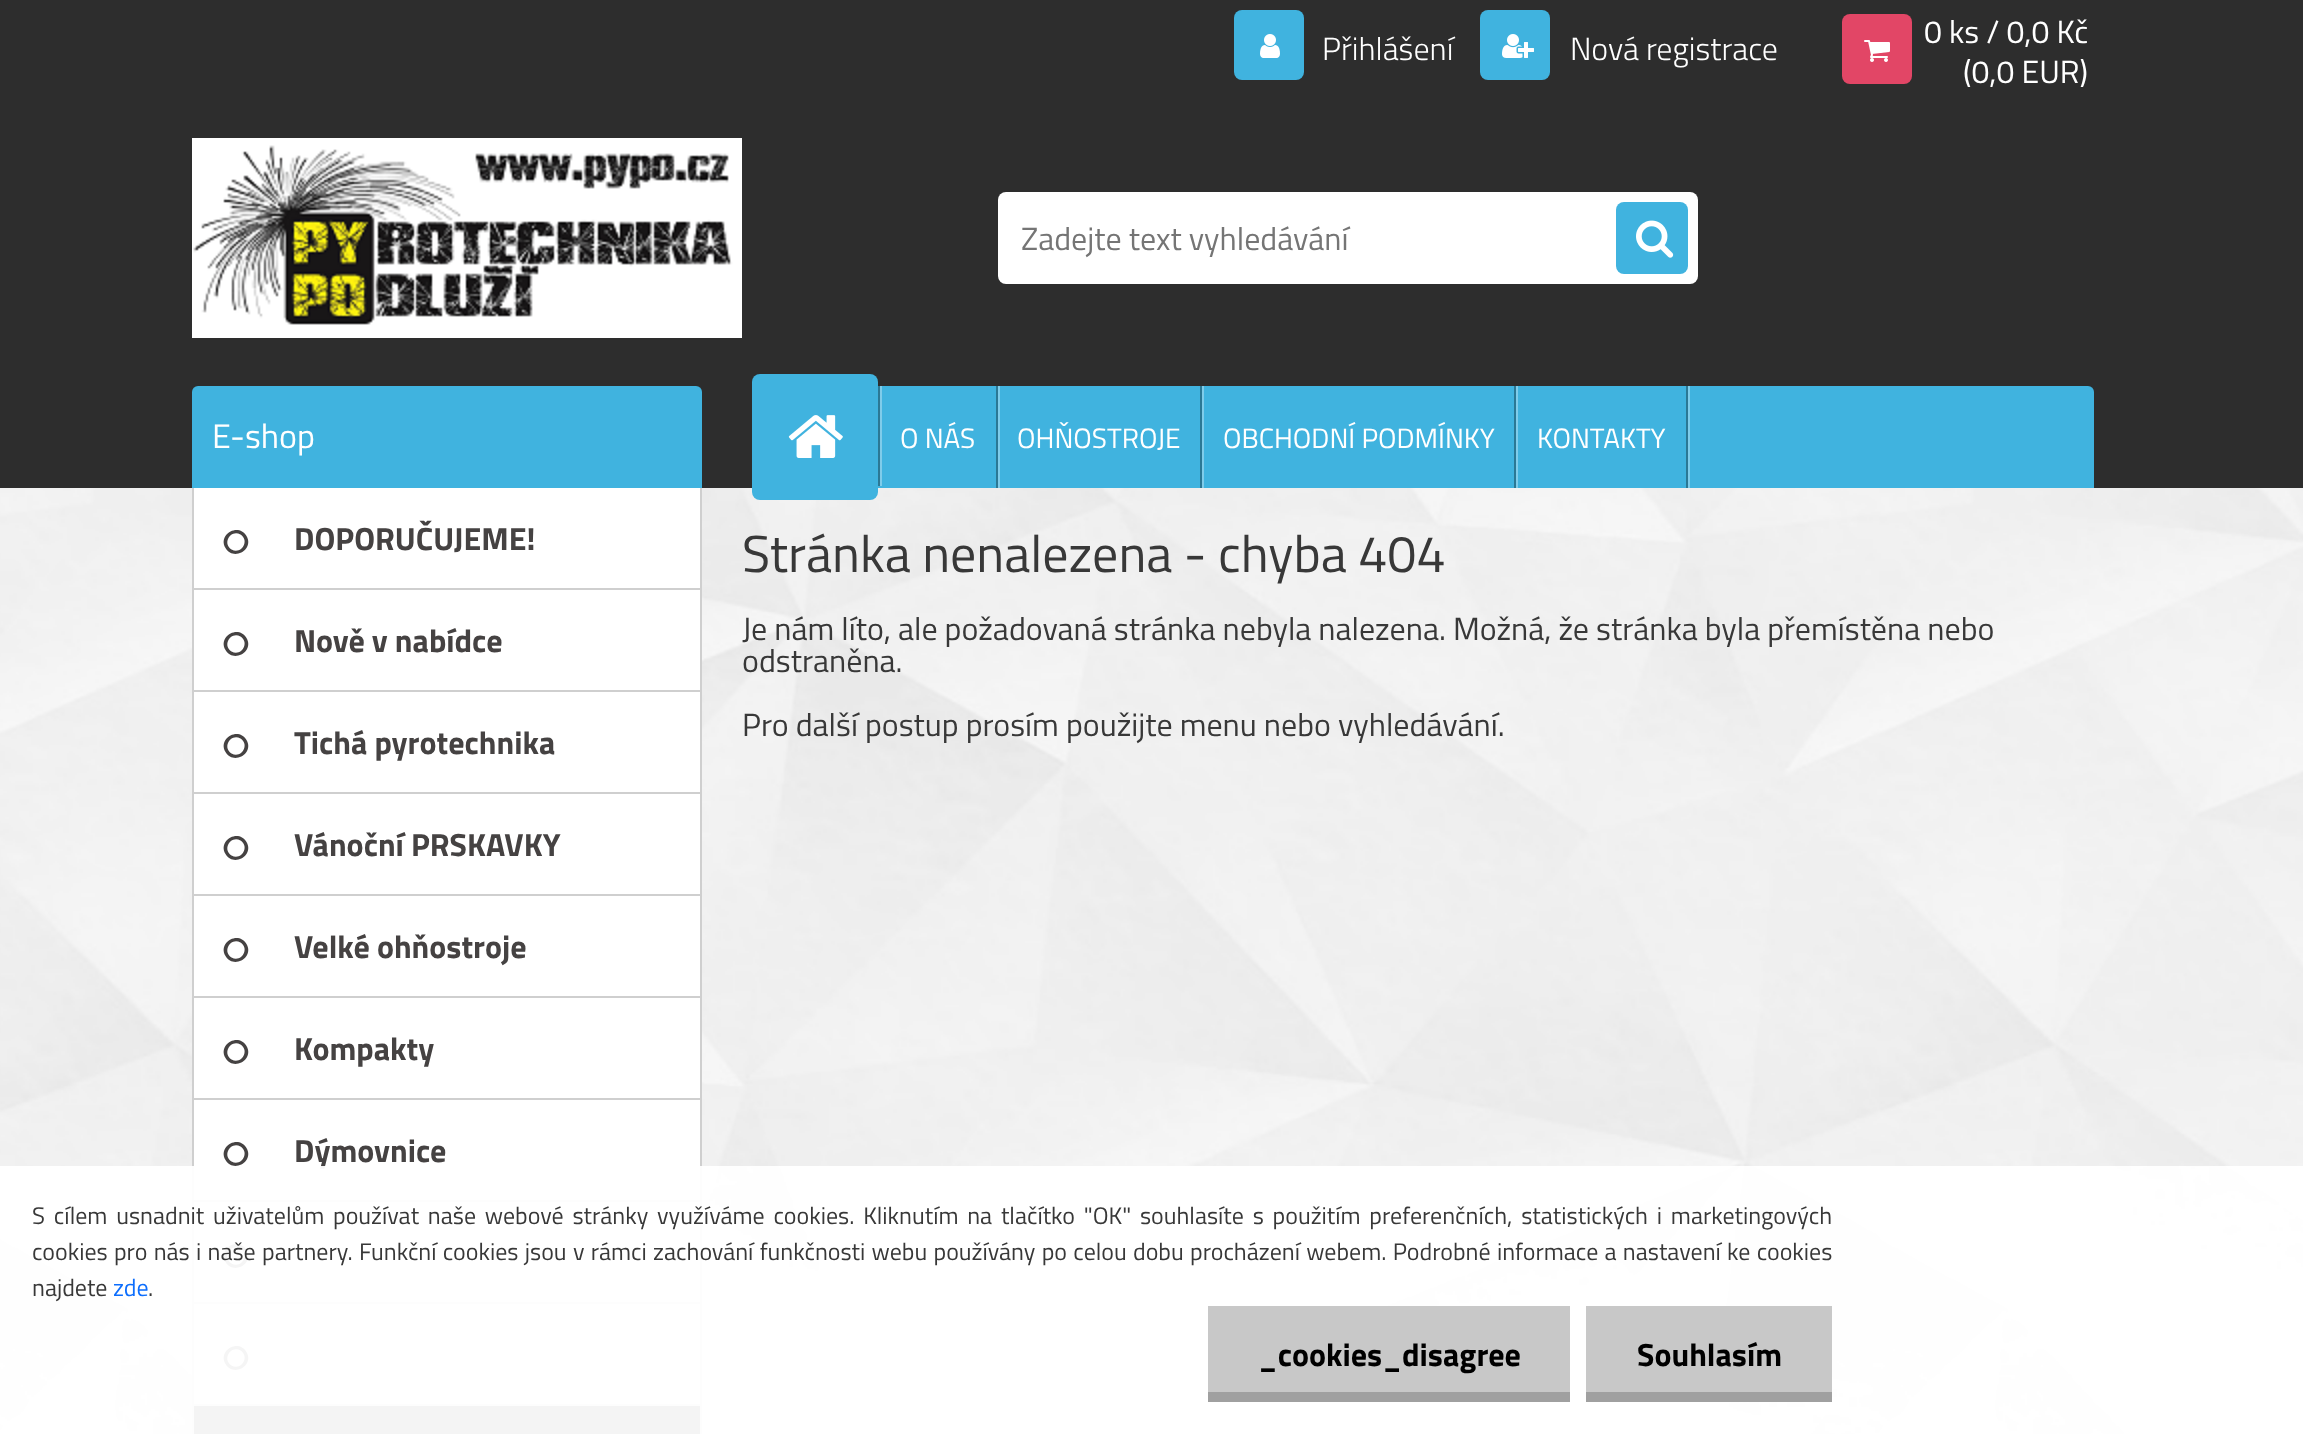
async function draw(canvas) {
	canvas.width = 2303;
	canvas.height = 1434;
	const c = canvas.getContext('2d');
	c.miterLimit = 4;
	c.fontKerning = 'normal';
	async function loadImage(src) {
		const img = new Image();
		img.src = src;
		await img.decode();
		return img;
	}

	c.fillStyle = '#fff';
	c.fillRect(0, 0, 2303, 1434);
	c.drawImage(await loadImage('img1.png'), 0, 488, 2303, 946);
	c.fillStyle = '#2d2d2d';
	c.fillRect(0, 0, 2303, 488);
	c.fillStyle = '#40b3df';
	c.beginPath();
	c.roundRect(1234, 10, 70, 70, 8);
	c.fill();
	c.drawImage(await loadImage('img2.png'), 1260, 34, 20, 24);
	c.font = '300 32px Titillium Web';
	c.fillStyle = '#fff';
	c.fillText('Přihlášení', 1322, 60);
	c.fillStyle = '#40b3df';
	c.beginPath();
	c.roundRect(1480, 10, 70, 70, 8);
	c.fill();
	c.drawImage(await loadImage('img3.png'), 1502, 34, 32, 24);
	c.fillStyle = '#fff';
	c.fillText('Nová registrace', 1570, 60);
	c.fillStyle = '#e24666';
	c.beginPath();
	c.roundRect(1842, 14, 70, 70, 8);
	c.fill();
	c.drawImage(await loadImage('img4.png'), 1864, 40, 26, 22);
	c.font = '32px Titillium Web';
	c.fillStyle = '#fff';
	c.fillText('0 ks / 0,0 Kč', 1924, 43);
	c.fillText('(0,0 EUR)', 1963, 83);
	c.fillStyle = '#40b3df';
	c.beginPath();
	c.roundRect(756, 386, 1338, 102, [6, 6, 0, 0]);
	c.fill();
	c.fillStyle = '#7fccea';
	c.fillRect(880, 386, 2, 100);
	c.fillStyle = '#2b7895';
	c.fillRect(878, 386, 2, 100);
	c.fillStyle = '#40b3df';
	c.beginPath();
	c.roundRect(752, 374, 126, 126, 8);
	c.fill();
	c.drawImage(await loadImage('img5.png'), 788, 415, 55, 43);
	c.fillStyle = '#7fccea';
	c.fillRect(998, 386, 2, 102);
	c.fillStyle = '#2b7895';
	c.fillRect(996, 386, 2, 102);
	c.font = '28px Titillium Web';
	c.fillStyle = '#fff';
	c.fillText('O NÁS', 900, 448);
	c.fillStyle = '#7fccea';
	c.fillRect(1202, 386, 2, 102);
	c.fillStyle = '#2b7895';
	c.fillRect(1200, 386, 2, 102);
	c.fillStyle = '#fff';
	c.fillText('OHŇOSTROJE', 1017, 448);
	c.fillStyle = '#7fccea';
	c.fillRect(1516, 386, 2, 102);
	c.fillStyle = '#2b7895';
	c.fillRect(1514, 386, 2, 102);
	c.fillStyle = '#fff';
	c.fillText('OBCHODNÍ PODMÍNKY', 1223, 448);
	c.fillStyle = '#7fccea';
	c.fillRect(1688, 386, 2, 102);
	c.fillStyle = '#2b7895';
	c.fillRect(1686, 386, 2, 102);
	c.fillStyle = '#fff';
	c.fillText('KONTAKTY', 1537, 448);
	c.fillStyle = '#40b3df';
	c.beginPath();
	c.roundRect(192, 386, 510, 102, [6, 6, 0, 0]);
	c.fill();
	c.font = '34px Titillium Web';
	c.fillStyle = '#fff';
	c.fillText('E-shop', 212, 448);
	for (const [x, y, w, h, color] of [
		[194, 488, 506, 100, '#fff'],
		[700, 488, 2, 946, '#cfcfcf'],
		[192, 588, 510, 2, '#cfcfcf'],
		[192, 488, 2, 102, '#cfcfcf'],
	]) {
		c.fillStyle = color;
		c.fillRect(x, y, w, h);
	}
	c.fillStyle = '#454242';
	c.beginPath();
	c.moveTo(240.5, 534.5);
	c.bezierCurveTo(230.5, 529, 222, 543.5, 231.5, 549.5);
	c.bezierCurveTo(241.5, 555, 250, 540.5, 240.5, 534.5);
	c.closePath();
	c.moveTo(246.5, 536);
	c.bezierCurveTo(254.5, 549.5, 233.5, 561.5, 225.5, 548);
	c.bezierCurveTo(217.5, 534.5, 238.5, 522.5, 246.5, 536);
	c.closePath();
	c.fill();
	c.font = 'bold 32px Titillium Web';
	c.fillText('DOPORUČUJEME!', 294, 550);
	for (const [x, y, w, h, color] of [
		[194, 590, 506, 100, '#fff'],
		[192, 690, 510, 2, '#cfcfcf'],
		[192, 590, 2, 102, '#cfcfcf'],
	]) {
		c.fillStyle = color;
		c.fillRect(x, y, w, h);
	}
	c.fillStyle = '#454242';
	c.beginPath();
	c.moveTo(240.5, 636.5);
	c.bezierCurveTo(230.5, 631, 222, 645.5, 231.5, 651.5);
	c.bezierCurveTo(241.5, 657, 250, 642.5, 240.5, 636.5);
	c.closePath();
	c.moveTo(246.5, 638);
	c.bezierCurveTo(254.5, 651.5, 233.5, 663.5, 225.5, 650);
	c.bezierCurveTo(217.5, 636.5, 238.5, 624.5, 246.5, 638);
	c.closePath();
	c.fill();
	c.fillText('Nově v nabídce', 294, 652);
	for (const [x, y, w, h, color] of [
		[194, 692, 506, 100, '#fff'],
		[192, 792, 510, 2, '#cfcfcf'],
		[192, 692, 2, 102, '#cfcfcf'],
	]) {
		c.fillStyle = color;
		c.fillRect(x, y, w, h);
	}
	c.fillStyle = '#454242';
	c.beginPath();
	c.moveTo(240.5, 738.5);
	c.bezierCurveTo(230.5, 733, 222, 747.5, 231.5, 753.5);
	c.bezierCurveTo(241.5, 759, 250, 744.5, 240.5, 738.5);
	c.closePath();
	c.moveTo(246.5, 740);
	c.bezierCurveTo(254.5, 753.5, 233.5, 765.5, 225.5, 752);
	c.bezierCurveTo(217.5, 738.5, 238.5, 726.5, 246.5, 740);
	c.closePath();
	c.fill();
	c.fillText('Tichá pyrotechnika', 294, 754);
	for (const [x, y, w, h, color] of [
		[194, 794, 506, 100, '#fff'],
		[192, 894, 510, 2, '#cfcfcf'],
		[192, 794, 2, 102, '#cfcfcf'],
	]) {
		c.fillStyle = color;
		c.fillRect(x, y, w, h);
	}
	c.fillStyle = '#454242';
	c.beginPath();
	c.moveTo(240.5, 840.5);
	c.bezierCurveTo(230.5, 835, 222, 849.5, 231.5, 855.5);
	c.bezierCurveTo(241.5, 861, 250, 846.5, 240.5, 840.5);
	c.closePath();
	c.moveTo(246.5, 842);
	c.bezierCurveTo(254.5, 855.5, 233.5, 867.5, 225.5, 854);
	c.bezierCurveTo(217.5, 840.5, 238.5, 828.5, 246.5, 842);
	c.closePath();
	c.fill();
	c.fillText('Vánoční PRSKAVKY', 294, 856);
	for (const [x, y, w, h, color] of [
		[194, 896, 506, 100, '#fff'],
		[192, 996, 510, 2, '#cfcfcf'],
		[192, 896, 2, 102, '#cfcfcf'],
	]) {
		c.fillStyle = color;
		c.fillRect(x, y, w, h);
	}
	c.fillStyle = '#454242';
	c.beginPath();
	c.moveTo(240.5, 942.5);
	c.bezierCurveTo(230.5, 937, 222, 951.5, 231.5, 957.5);
	c.bezierCurveTo(241.5, 963, 250, 948.5, 240.5, 942.5);
	c.closePath();
	c.moveTo(246.5, 944);
	c.bezierCurveTo(254.5, 957.5, 233.5, 969.5, 225.5, 956);
	c.bezierCurveTo(217.5, 942.5, 238.5, 930.5, 246.5, 944);
	c.closePath();
	c.fill();
	c.fillText('Velké ohňostroje', 294, 958);
	for (const [x, y, w, h, color] of [
		[194, 998, 506, 100, '#fff'],
		[192, 1098, 510, 2, '#cfcfcf'],
		[192, 998, 2, 102, '#cfcfcf'],
	]) {
		c.fillStyle = color;
		c.fillRect(x, y, w, h);
	}
	c.fillStyle = '#454242';
	c.beginPath();
	c.moveTo(240.5, 1044.5);
	c.bezierCurveTo(230.5, 1039, 222, 1053.5, 231.5, 1059.5);
	c.bezierCurveTo(241.5, 1065, 250, 1050.5, 240.5, 1044.5);
	c.closePath();
	c.moveTo(246.5, 1046);
	c.bezierCurveTo(254.5, 1059.5, 233.5, 1071.5, 225.5, 1058);
	c.bezierCurveTo(217.5, 1044.5, 238.5, 1032.5, 246.5, 1046);
	c.closePath();
	c.fill();
	c.fillText('Kompakty', 294, 1060);
	for (const [x, y, w, h, color] of [
		[194, 1100, 506, 100, '#fff'],
		[192, 1200, 510, 2, '#cfcfcf'],
		[192, 1100, 2, 102, '#cfcfcf'],
	]) {
		c.fillStyle = color;
		c.fillRect(x, y, w, h);
	}
	c.fillStyle = '#454242';
	c.beginPath();
	c.moveTo(240.5, 1146.5);
	c.bezierCurveTo(230.5, 1141, 222, 1155.5, 231.5, 1161.5);
	c.bezierCurveTo(241.5, 1167, 250, 1152.5, 240.5, 1146.5);
	c.closePath();
	c.moveTo(246.5, 1148);
	c.bezierCurveTo(254.5, 1161.5, 233.5, 1173.5, 225.5, 1160);
	c.bezierCurveTo(217.5, 1146.5, 238.5, 1134.5, 246.5, 1148);
	c.closePath();
	c.fill();
	c.fillText('Dýmovnice', 294, 1162);
	for (const [x, y, w, h, color] of [
		[194, 1202, 506, 100, '#fff'],
		[192, 1302, 510, 2, '#cfcfcf'],
		[192, 1202, 2, 102, '#cfcfcf'],
	]) {
		c.fillStyle = color;
		c.fillRect(x, y, w, h);
	}
	c.fillStyle = '#454242';
	c.beginPath();
	c.moveTo(240.5, 1248.5);
	c.bezierCurveTo(230.5, 1243, 222, 1257.5, 231.5, 1263.5);
	c.bezierCurveTo(241.5, 1269, 250, 1254.5, 240.5, 1248.5);
	c.closePath();
	c.moveTo(246.5, 1250);
	c.bezierCurveTo(254.5, 1263.5, 233.5, 1275.5, 225.5, 1262);
	c.bezierCurveTo(217.5, 1248.5, 238.5, 1236.5, 246.5, 1250);
	c.closePath();
	c.fill();
	for (const [x, y, w, h, color] of [
		[194, 1304, 506, 100, '#fff'],
		[192, 1404, 510, 2, '#cfcfcf'],
		[192, 1304, 2, 130, '#cfcfcf'],
	]) {
		c.fillStyle = color;
		c.fillRect(x, y, w, h);
	}
	c.fillStyle = '#454242';
	c.beginPath();
	c.moveTo(240.5, 1350.5);
	c.bezierCurveTo(230.5, 1345, 222, 1359.5, 231.5, 1365.5);
	c.bezierCurveTo(241.5, 1371, 250, 1356.5, 240.5, 1350.5);
	c.closePath();
	c.moveTo(246.5, 1352);
	c.bezierCurveTo(254.5, 1365.5, 233.5, 1377.5, 225.5, 1364);
	c.bezierCurveTo(217.5, 1350.5, 238.5, 1338.5, 246.5, 1352);
	c.closePath();
	c.fill();
	c.fillStyle = '#252525';
	c.fillRect(194, 1406, 506, 28);
	c.font = '52px Titillium Web';
	c.fillStyle = '#383838';
	c.fillText('Stránka nenalezena - chyba 404', 742, 572);
	c.font = '32px Titillium Web';
	for (const [text, x, y] of [
		['Je nám líto, ale požadovaná stránka nebyla nalezena. Možná, že stránka byla přemístěna nebo', 742, 640],
		['odstraněna.', 742, 672],
		['Pro další postup prosím použijte menu nebo vyhledávání.', 742, 736],
	]) {
		c.fillText(text, x, y);
	}
	c.drawImage(await loadImage('img6.png'), 192, 138, 550, 200);
	c.fillStyle = '#fff';
	c.beginPath();
	c.roundRect(998, 192, 700, 92, 8);
	c.fill();
	c.fillStyle = '#757575';
	c.fillText('Zadejte text vyhledávání', 1021, 250);
	c.fillStyle = '#40b3df';
	c.beginPath();
	c.roundRect(1616, 202, 72, 72, 8);
	c.fill();
	c.drawImage(await loadImage('img7.png'), 1636, 220, 38, 38);
	c.fillStyle = '#fffffff2';
	c.fillRect(0, 1166, 2303, 268);
	c.wordSpacing = '3.5px';
	c.font = '24px Titillium Web';
	c.fillStyle = '#383838';
	c.fillText('S cílem usnadnit uživatelům používat naše webové stránky využíváme cookies. Kliknutím na tlačítko "OK" souhlasíte s použitím preferenčních, statistických i marketingových', 32, 1224);
	c.wordSpacing = '1px';
	c.fillText('cookies pro nás i naše partnery. Funkční cookies jsou v rámci zachování funkčnosti webu používány po celou dobu procházení webem. Podrobné informace a nastavení ke cookies', 32, 1260);
	c.wordSpacing = '0px';
	c.fillText('najdete', 32, 1296);
	c.fillStyle = '#0d6efd';
	c.fillText('zde', 113, 1296);
	c.fillStyle = '#383838';
	c.fillText('.', 148, 1296);
	c.fillStyle = '#c8c8c8';
	c.fillRect(1208, 1306, 362, 86);
	c.fillStyle = '#a0a0a0';
	c.fillRect(1208, 1392, 362, 10);
	c.font = 'bold 32px Titillium Web';
	c.fillStyle = '#000';
	c.fillText('_cookies_disagree', 1258, 1366);
	c.fillStyle = '#c8c8c8';
	c.fillRect(1586, 1306, 246, 86);
	c.fillStyle = '#a0a0a0';
	c.fillRect(1586, 1392, 246, 10);
	c.fillStyle = '#000';
	c.fillText('Souhlasím', 1637, 1366);
}

draw(document.querySelector('canvas'));
